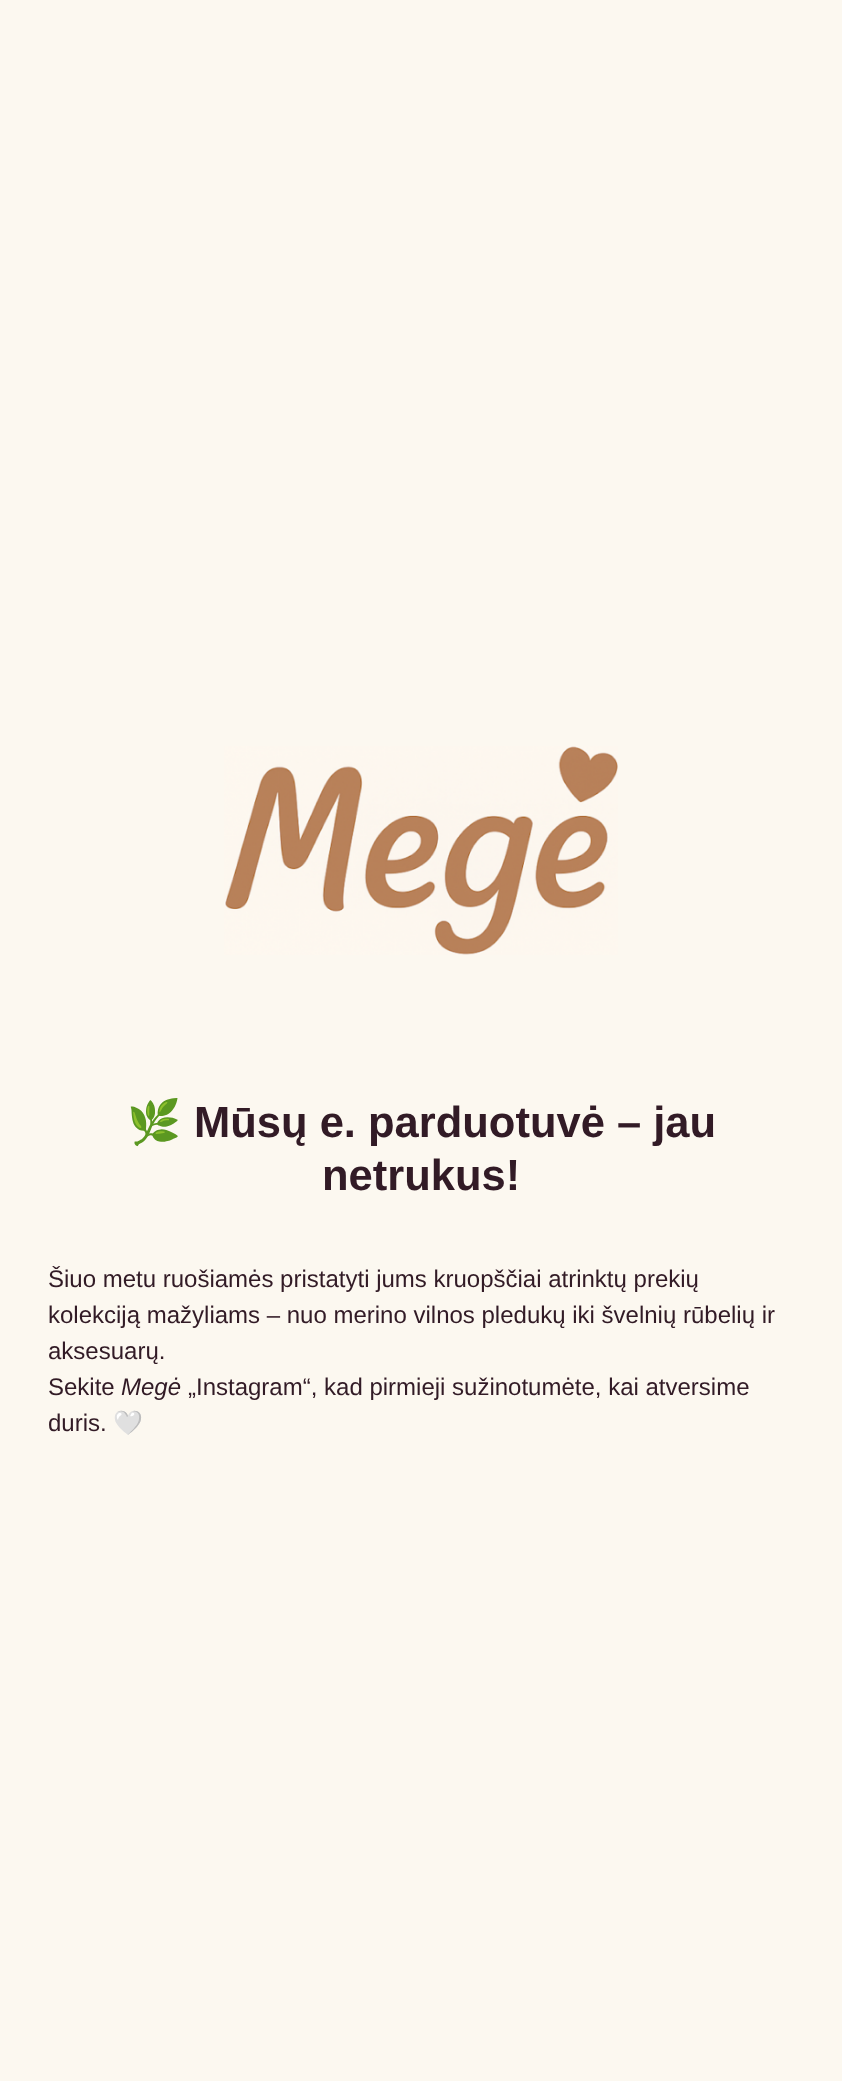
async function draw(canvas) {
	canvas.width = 842;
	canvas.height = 2081;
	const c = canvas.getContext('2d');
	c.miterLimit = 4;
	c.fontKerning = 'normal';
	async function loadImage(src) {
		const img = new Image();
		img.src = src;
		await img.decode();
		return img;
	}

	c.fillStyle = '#fcf8f0';
	c.fillRect(0, 0, 842, 2081);
	c.drawImage(await loadImage('img1.png'), 224, 746, 394, 209);
	c.font = 'bold 43.5px Noto Color Emoji';
	c.fillStyle = '#321b26';
	c.fillText('🌿', 127, 1137);
	c.font = 'bold 43.5px Liberation Sans';
	c.fillText('Mūsų e. parduotuvė – jau', 194, 1137);
	c.fillText('netrukus!', 322, 1190);
	c.font = '24px Liberation Sans';
	for (const [text, x, y] of [
		['Šiuo metu ruošiamės pristatyti jums kruopščiai atrinktų prekių', 48, 1287],
		['kolekciją mažyliams – nuo merino vilnos pledukų iki švelnių rūbelių ir', 48, 1323],
		['aksesuarų.', 48, 1359],
		['Sekite', 48, 1395],
	]) {
		c.fillText(text, x, y);
	}
	c.font = 'italic 24px Liberation Sans';
	c.fillText('Megė', 121, 1395);
	c.font = '24px Liberation Sans';
	c.fillText('„Instagram“, kad pirmieji sužinotumėte, kai atversime', 188, 1395);
	c.fillText('duris.', 48, 1431);
	c.font = '24px Noto Color Emoji';
	c.fillText('🤍', 113, 1431);
}

draw(document.querySelector('canvas'));
